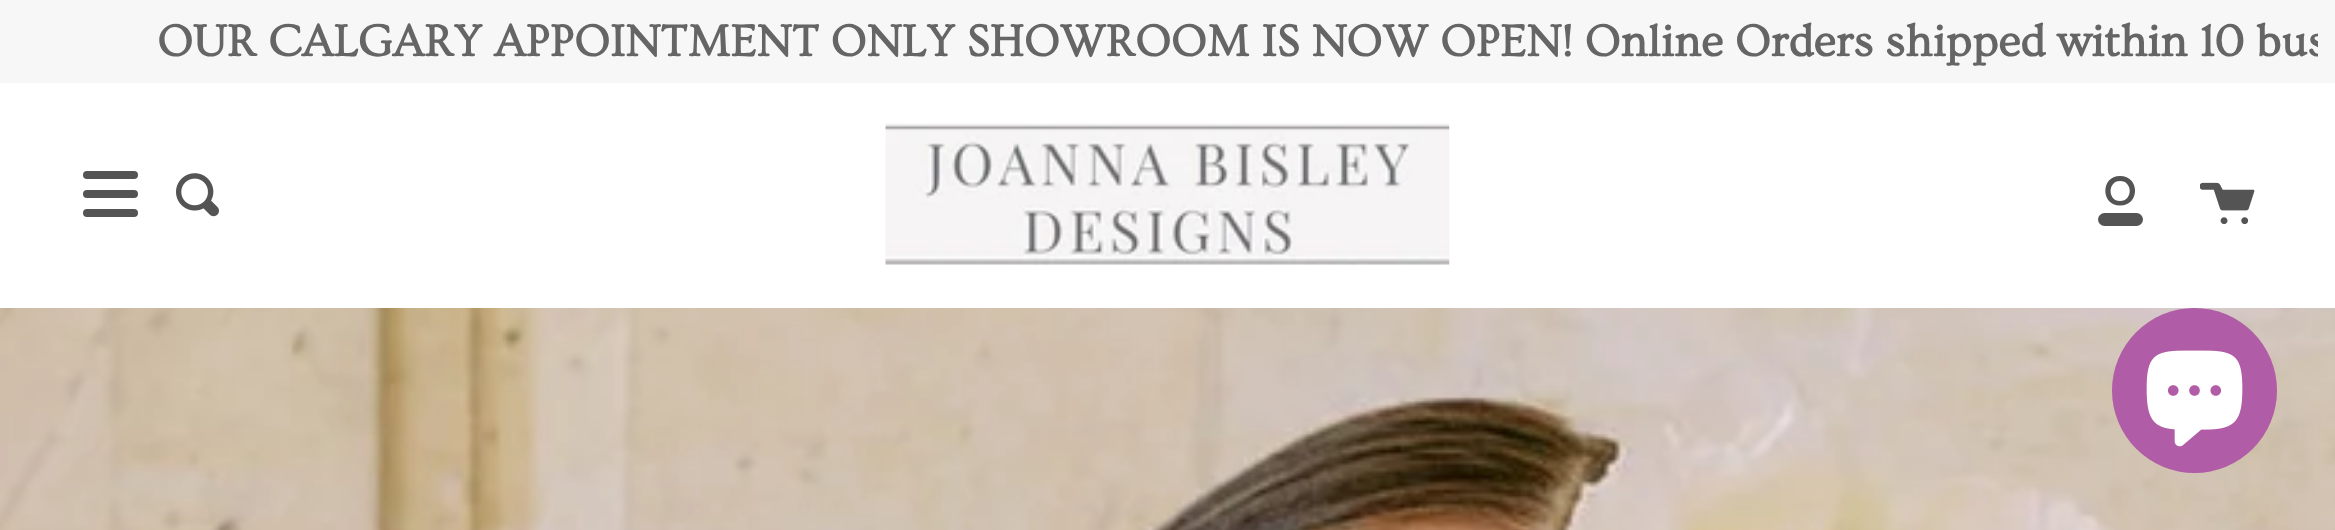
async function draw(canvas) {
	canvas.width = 2335;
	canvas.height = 530;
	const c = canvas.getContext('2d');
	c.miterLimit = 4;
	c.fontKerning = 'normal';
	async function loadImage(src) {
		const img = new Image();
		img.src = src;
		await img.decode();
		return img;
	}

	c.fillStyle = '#fff';
	c.fillRect(0, 0, 2335, 530);
	c.fillStyle = '#f7f7f7';
	c.fillRect(0, 0, 2335, 83);
	c.save();
	c.beginPath();
	c.rect(19, 6, 2299, 71);
	c.clip();
	c.font = 'bold 46.2px Ovo';
	c.fillStyle = '#656565';
	c.fillText('OUR CALGARY APPOINTMENT ONLY SHOWROOM IS NOW OPEN! Online Orders shipped within 10 bus', 157, 56);
	c.restore();
	c.fillStyle = '#545454';
	c.beginPath();
	c.roundRect(83, 171, 46, 8, [4, 0, 0, 4]);
	c.fill();
	c.beginPath();
	c.roundRect(91, 171, 47, 8, [0, 4, 4, 0]);
	c.fill();
	c.beginPath();
	c.roundRect(83, 190, 46, 8, [4, 0, 0, 4]);
	c.fill();
	c.beginPath();
	c.roundRect(91, 190, 47, 8, [0, 4, 4, 0]);
	c.fill();
	c.beginPath();
	c.roundRect(83, 209, 46, 8, [4, 0, 0, 4]);
	c.fill();
	c.beginPath();
	c.roundRect(91, 209, 47, 8, [0, 4, 4, 0]);
	c.fill();
	c.drawImage(await loadImage('img1.png'), 176, 173, 43, 44);
	c.drawImage(await loadImage('img2.png'), 885, 123, 565, 143);
	c.beginPath();
	c.moveTo(2120, 205.5);
	c.bezierCurveTo(2100.5, 205.5, 2100.5, 176, 2120, 176);
	c.bezierCurveTo(2140, 176, 2140, 205.5, 2120, 205.5);
	c.closePath();
	c.moveTo(2120, 201);
	c.bezierCurveTo(2133, 201, 2133, 181, 2120, 181);
	c.bezierCurveTo(2107.5, 181, 2107.5, 201, 2120, 201);
	c.closePath();
	c.fill();
	c.beginPath();
	c.roundRect(2098, 213, 45, 13, 6.5);
	c.fill();
	c.drawImage(await loadImage('img3.png'), 2200, 182, 55, 43);
	c.drawImage(await loadImage('img4.png'), 0, 308, 2335, 222);
	c.fillStyle = '#b15ca6';
	c.beginPath();
	c.arc(2194.5, 390.5, 82.5, 0, 2 * Math.PI);
	c.fill();
	c.drawImage(await loadImage('img5.png'), 2146, 350, 97, 97);
}

draw(document.querySelector('canvas'));
